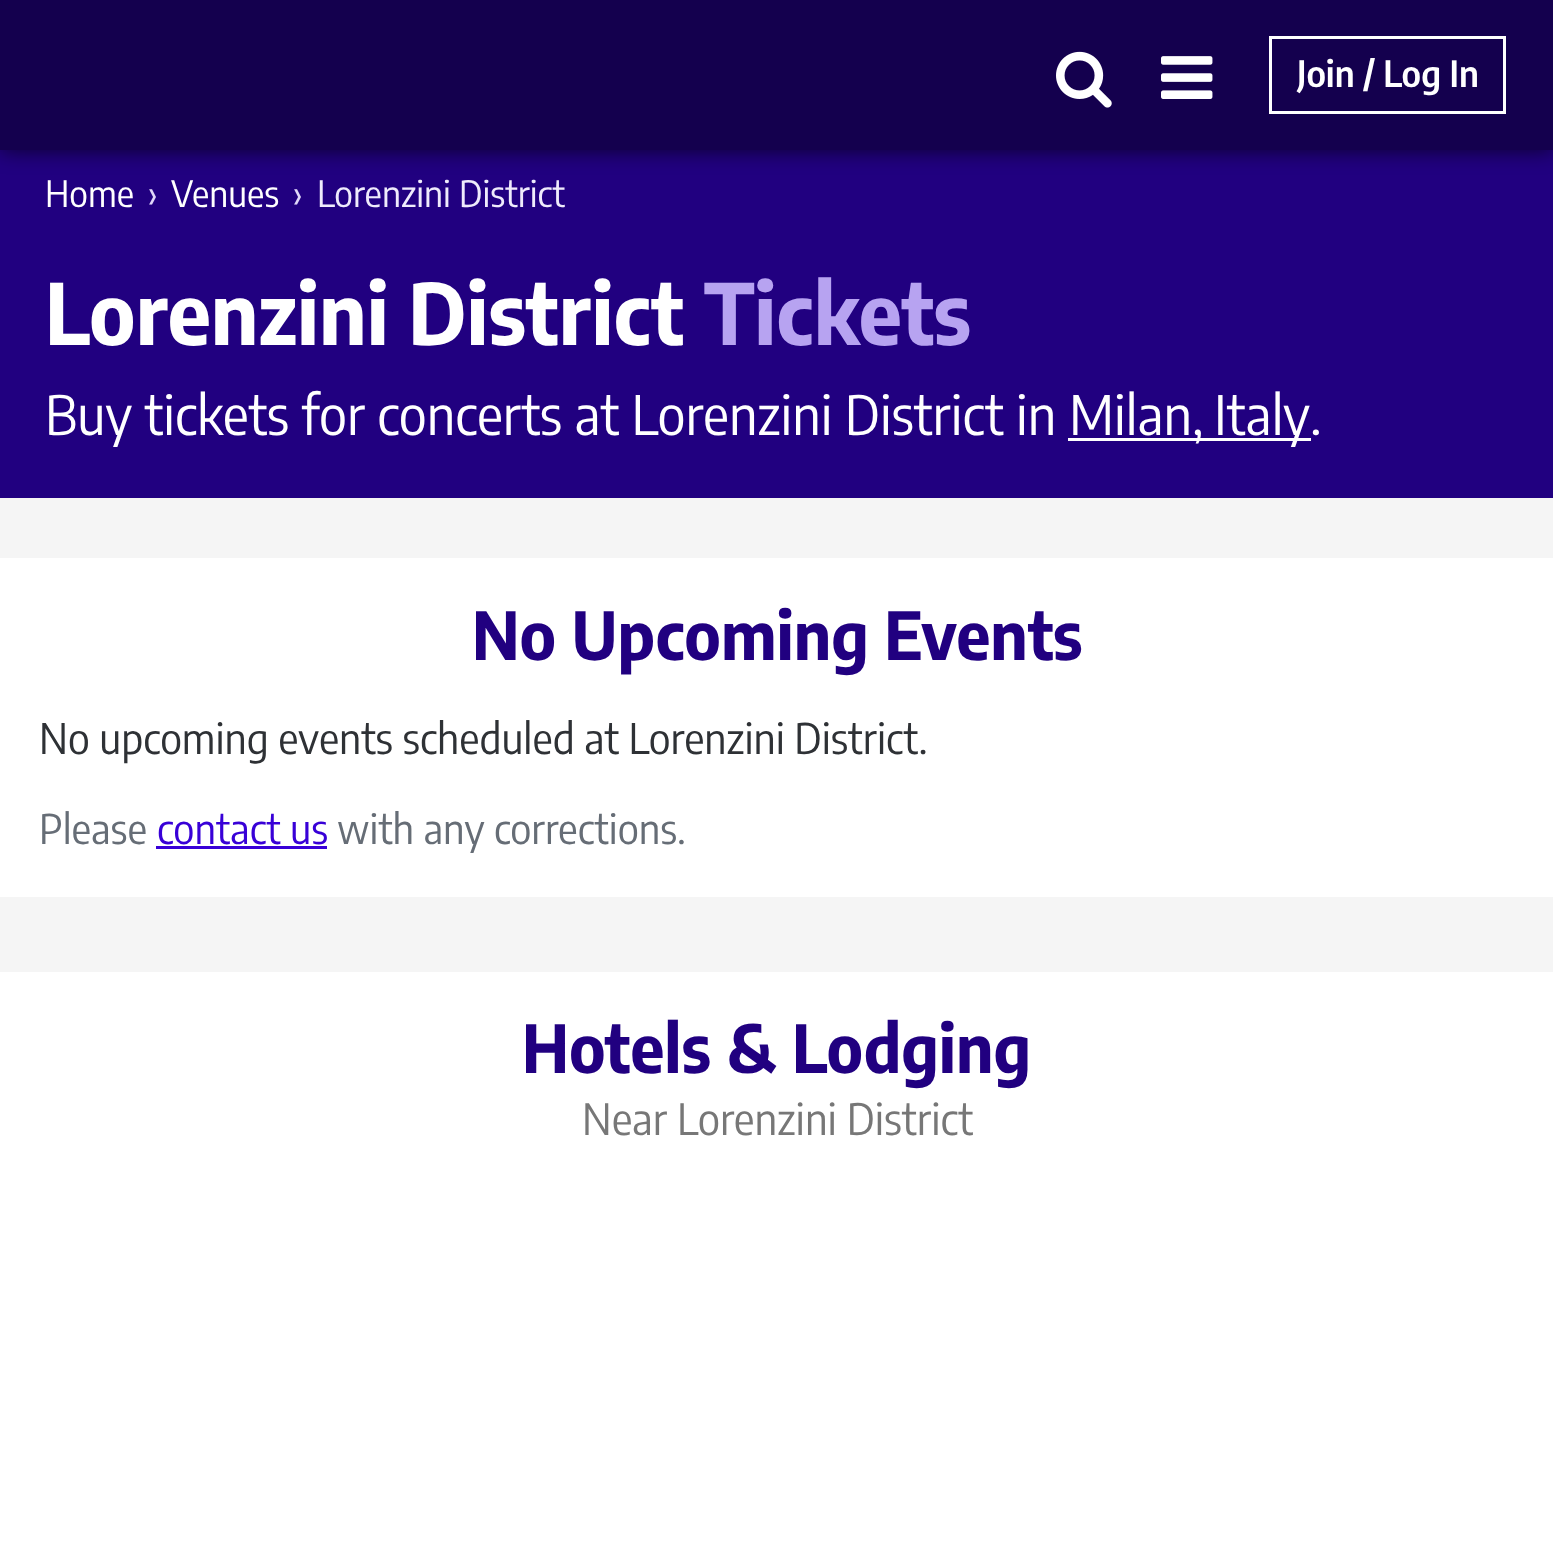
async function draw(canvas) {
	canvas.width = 1553;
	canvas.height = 1546;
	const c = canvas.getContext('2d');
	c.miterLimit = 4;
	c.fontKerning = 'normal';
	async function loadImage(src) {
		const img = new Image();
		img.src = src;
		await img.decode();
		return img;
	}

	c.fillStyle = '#f5f5f5';
	c.fillRect(0, 0, 1553, 1546);
	c.fillStyle = '#210080';
	c.fillRect(0, 150, 1553, 348);
	c.fillStyle = '#000000a8';
	c.filter = 'blur(10.5px)';
	c.beginPath();
	c.rect(0, 0, 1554, 150);
	c.fill();
	c.filter = 'none';
	c.fillStyle = '#14004e';
	c.fillRect(0, 0, 1553, 150);
	c.drawImage(await loadImage('img1.png'), 1056, 51, 56, 57);
	c.drawImage(await loadImage('img2.png'), 1161, 56, 52, 43);
	c.strokeStyle = '#fff';
	c.lineWidth = 3;
	c.strokeRect(1270.5, 37.5, 234, 75);
	c.font = '600 36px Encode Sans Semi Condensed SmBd';
	c.fillStyle = '#fff';
	c.fillText('Join / Log In', 1297, 87);
	c.font = '36px Encode Sans Semi Condensed';
	c.fillText('Home', 45, 207);
	c.fillStyle = '#e0d7f9';
	c.fillText('›', 148, 207);
	c.fillStyle = '#fff';
	c.fillText('Venues', 171, 207);
	c.fillStyle = '#e0d7f9';
	c.fillText('›', 293, 207);
	c.fillStyle = '#efebfc';
	c.fillText('Lorenzini District', 317, 207);
	c.font = 'bold 84px Encode Sans Semi Condensed';
	c.fillStyle = '#fff';
	c.fillText('Lorenzini District', 45, 345);
	c.fillStyle = '#b7a3f1';
	c.fillText('Tickets', 704, 345);
	c.font = '54px Encode Sans Semi Condensed';
	c.fillStyle = '#fff';
	c.fillText('Buy tickets for concerts at Lorenzini District in', 45, 435);
	c.fillRect(1068, 438, 243, 3);
	c.wordSpacing = '-2px';
	c.fillText('Milan, Italy', 1069, 435);
	c.wordSpacing = '0px';
	c.fillText('.', 1310, 435);
	c.fillRect(0, 558, 1553, 339);
	c.font = 'bold 66px Encode Sans Semi Condensed';
	c.fillStyle = '#210080';
	c.fillText('No Upcoming Events', 472, 660);
	c.font = '42px Encode Sans Semi Condensed';
	c.fillStyle = '#2e3135';
	c.fillText('No upcoming events scheduled at Lorenzini District.', 39, 754);
	c.font = '40.75px Encode Sans Semi Condensed';
	c.fillStyle = '#666d76';
	c.fillText('Please', 39, 844);
	c.fillStyle = '#3800d7';
	c.fillText('contact us', 157, 844);
	c.fillRect(156, 846, 171, 3);
	c.fillStyle = '#666d76';
	c.fillText('with any corrections.', 337, 844);
	c.fillStyle = '#fff';
	c.fillRect(0, 972, 1553, 574);
	c.font = 'bold 66px Encode Sans Semi Condensed';
	c.fillStyle = '#210080';
	c.fillText('Hotels & Lodging', 522, 1073);
	c.font = '43px Encode Sans Semi Condensed';
	c.fillStyle = '#777';
	c.fillText('Near Lorenzini District', 582, 1135);
}

draw(document.querySelector('canvas'));
